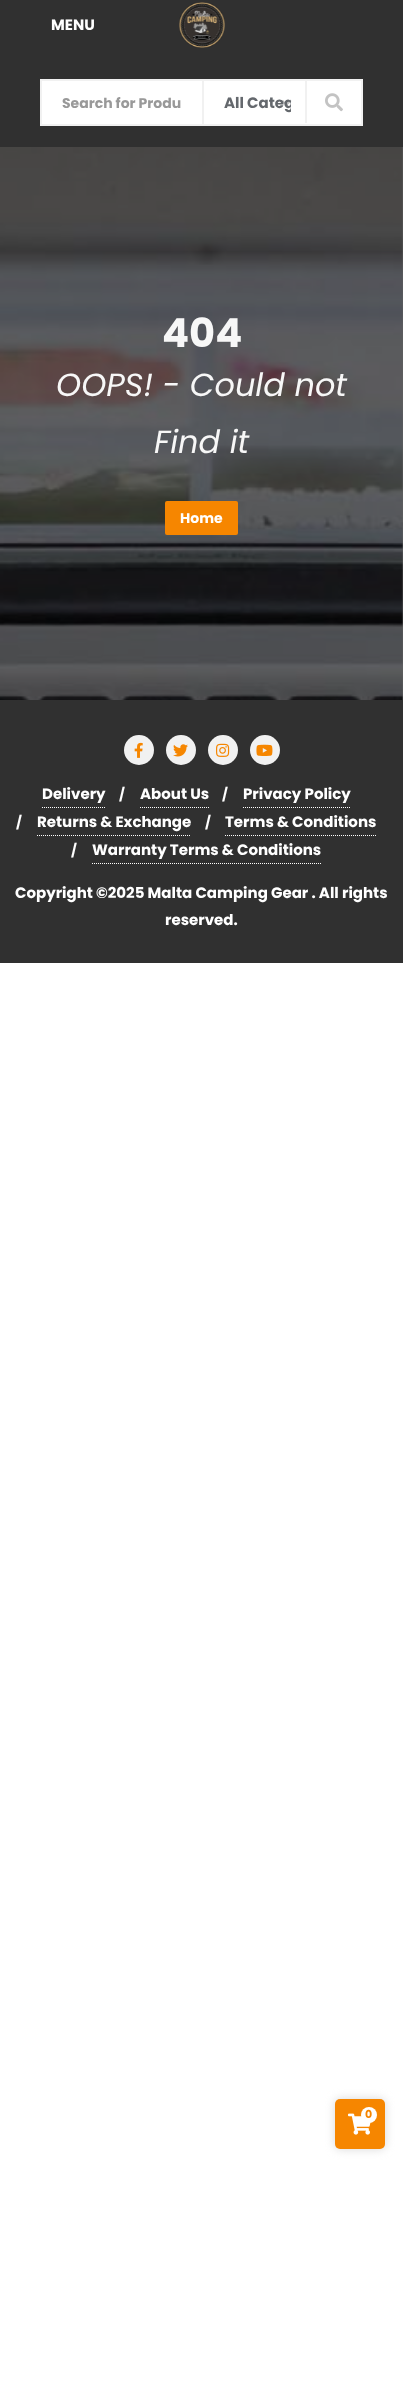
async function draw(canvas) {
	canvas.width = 403;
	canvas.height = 2399;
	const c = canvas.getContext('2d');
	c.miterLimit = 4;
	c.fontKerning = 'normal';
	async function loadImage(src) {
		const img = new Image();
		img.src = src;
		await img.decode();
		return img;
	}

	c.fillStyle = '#fff';
	c.fillRect(0, 0, 403, 2399);
	c.fillStyle = '#303030';
	c.fillRect(0, 0, 403, 147);
	c.font = 'bold 15px Poppins';
	c.fillStyle = '#fff';
	c.fillText('MENU', 51, 30);
	c.drawImage(await loadImage('img1.png'), 179, 2, 46, 46);
	c.beginPath();
	c.rect(41, 80, 321, 45);
	c.fill();
	c.strokeStyle = '#f1f1f1';
	c.lineWidth = 2;
	c.stroke();
	c.font = 'bold 14px Poppins';
	c.fillStyle = '#999';
	c.fillText('Search for Produ', 62, 108);
	c.beginPath();
	c.moveTo(282.5, 100.5);
	c.lineTo(286.5, 105);
	c.lineTo(291, 100.5);
	c.strokeStyle = '#bbb';
	c.lineWidth = 1.4;
	c.stroke();
	c.fillStyle = '#f1f1f1';
	c.fillRect(202, 81, 2, 43);
	c.save();
	c.beginPath();
	c.rect(214, 93, 77, 20);
	c.clip();
	c.font = 'bold 15px Poppins';
	c.fillStyle = '#64686d';
	c.fillText('All Categ', 224, 108);
	c.restore();
	c.fillRect(305, 81, 2, 42);
	c.drawImage(await loadImage('img2.png'), 325, 93, 18, 19);
	c.fillStyle = '#5f5f5f';
	c.fillRect(401, 147, 2, 553);
	c.drawImage(await loadImage('img3.png'), 0, 147, 403, 553);
	c.font = 'bold 40px Poppins';
	c.fillStyle = '#f7f7f7';
	c.fillText('404', 162, 347);
	c.font = 'italic 32px Poppins';
	c.fillText('OOPS! - Could not', 56, 396);
	c.fillText('Find it', 154, 453);
	c.fillStyle = '#f68600';
	c.beginPath();
	c.roundRect(165, 501, 73, 34, 2);
	c.fill();
	c.font = 'bold 14px Poppins';
	c.fillStyle = '#fff';
	c.fillText('Home', 180, 523);
	c.fillStyle = '#303030';
	c.fillRect(0, 700, 403, 263);
	c.fillStyle = '#f1f1f1';
	c.beginPath();
	c.arc(139, 750, 15, 0, 2 * Math.PI);
	c.fill();
	c.drawImage(await loadImage('img4.png'), 134, 742, 9, 16);
	c.beginPath();
	c.arc(181, 750, 15, 0, 2 * Math.PI);
	c.fill();
	c.drawImage(await loadImage('img5.png'), 173, 744, 15, 13);
	c.beginPath();
	c.arc(223, 750, 15, 0, 2 * Math.PI);
	c.fill();
	c.drawImage(await loadImage('img6.png'), 216, 743, 14, 14);
	c.beginPath();
	c.arc(265, 750, 15, 0, 2 * Math.PI);
	c.fill();
	c.drawImage(await loadImage('img7.png'), 256, 744, 17, 12);
	c.beginPath();
	c.moveTo(42, 807.5);
	c.lineTo(106, 807.5);
	c.strokeStyle = '#fff';
	c.lineWidth = 1;
	c.setLineDash([1, 1]);
	c.stroke();
	c.font = 'bold 15px Poppins';
	c.fillStyle = '#fff';
	c.fillText('Delivery', 42, 799);
	c.font = 'bold 13px Poppins';
	c.fillText('/', 119, 799);
	c.beginPath();
	c.moveTo(140, 807.5);
	c.lineTo(209, 807.5);
	c.stroke();
	c.font = 'bold 15px Poppins';
	c.fillText('About Us', 140, 799);
	c.font = 'bold 13px Poppins';
	c.fillText('/', 222, 799);
	c.beginPath();
	c.moveTo(243, 807.5);
	c.lineTo(351, 807.5);
	c.stroke();
	c.font = 'bold 15px Poppins';
	c.fillText('Privacy Policy', 243, 799);
	c.font = 'bold 13px Poppins';
	c.fillText('/', 16, 827);
	c.beginPath();
	c.moveTo(37, 835.5);
	c.lineTo(191, 835.5);
	c.stroke();
	c.font = 'bold 15px Poppins';
	c.fillText('Returns & Exchange', 37, 827);
	c.font = 'bold 13px Poppins';
	c.fillText('/', 205, 827);
	c.beginPath();
	c.moveTo(225, 835.5);
	c.lineTo(377, 835.5);
	c.stroke();
	c.font = 'bold 15px Poppins';
	c.fillText('Terms & Conditions', 225, 827);
	c.font = 'bold 13px Poppins';
	c.fillText('/', 71, 855);
	c.beginPath();
	c.moveTo(92, 863.5);
	c.lineTo(322, 863.5);
	c.stroke();
	c.font = 'bold 15px Poppins';
	for (const [text, x, y] of [
		['Warranty Terms & Conditions', 92, 855],
		['Copyright ©2025 Malta Camping Gear . All rights', 15, 898],
		['reserved.', 165, 925],
	]) {
		c.fillText(text, x, y);
	}
	c.fillStyle = '#ccccccc7';
	c.filter = 'blur(5px)';
	c.beginPath();
	c.roundRect(335, 2099, 50, 50, 5);
	c.fill();
	c.filter = 'none';
	c.fillStyle = '#f68600';
	c.beginPath();
	c.roundRect(335, 2099, 50, 50, 5);
	c.fill();
	c.drawImage(await loadImage('img8.png'), 348, 2113, 23, 22);
	c.fillStyle = '#fff';
	c.beginPath();
	c.arc(369, 2115, 8, 0, 2 * Math.PI);
	c.fill();
	c.font = 'bold 11px Poppins';
	c.fillStyle = '#f68600';
	c.fillText('0', 365, 2118);
}

draw(document.querySelector('canvas'));
